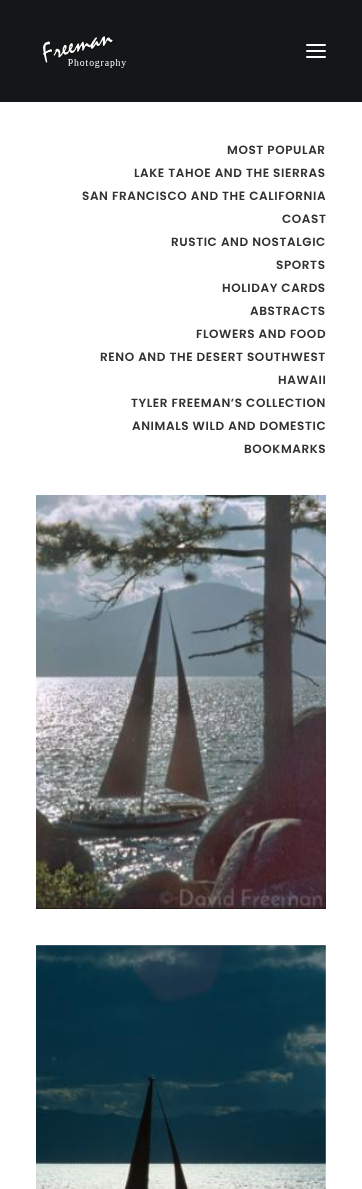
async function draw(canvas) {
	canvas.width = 362;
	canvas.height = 1189;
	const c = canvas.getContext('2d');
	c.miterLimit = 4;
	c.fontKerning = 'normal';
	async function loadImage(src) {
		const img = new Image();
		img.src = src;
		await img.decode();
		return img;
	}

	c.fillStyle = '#fff';
	c.fillRect(0, 0, 362, 1189);
	c.fillStyle = '#141618';
	c.fillRect(0, 0, 362, 102);
	c.drawImage(await loadImage('img1.png'), 42, 36, 85, 33);
	c.fillStyle = '#fff';
	c.beginPath();
	c.roundRect(306, 50, 20, 2, 1);
	c.fill();
	c.beginPath();
	c.roundRect(306, 44, 20, 2, 1);
	c.fill();
	c.beginPath();
	c.roundRect(306, 56, 20, 2, 1);
	c.fill();
	c.letterSpacing = '0.6px';
	c.font = '600 12px Poppins';
	c.fillStyle = '#303133';
	for (const [text, x, y] of [
		['MOST POPULAR', 227, 154],
		['LAKE TAHOE AND THE SIERRAS', 134, 177],
		['SAN FRANCISCO AND THE CALIFORNIA', 82, 200],
		['COAST', 282, 223],
		['RUSTIC AND NOSTALGIC', 171, 246],
		['SPORTS', 276, 269],
		['HOLIDAY CARDS', 222, 292],
		['ABSTRACTS', 250, 315],
		['FLOWERS AND FOOD', 196, 338],
		['RENO AND THE DESERT SOUTHWEST', 100, 361],
		['HAWAII', 278, 384],
		['TYLER FREEMAN’S COLLECTION', 131, 407],
		['ANIMALS WILD AND DOMESTIC', 132, 430],
		['BOOKMARKS', 244, 453],
	]) {
		c.fillText(text, x, y);
	}
	c.drawImage(await loadImage('img2.png'), 36, 495, 290, 414);
	c.drawImage(await loadImage('img3.png'), 36, 945, 290, 244);
}

draw(document.querySelector('canvas'));
